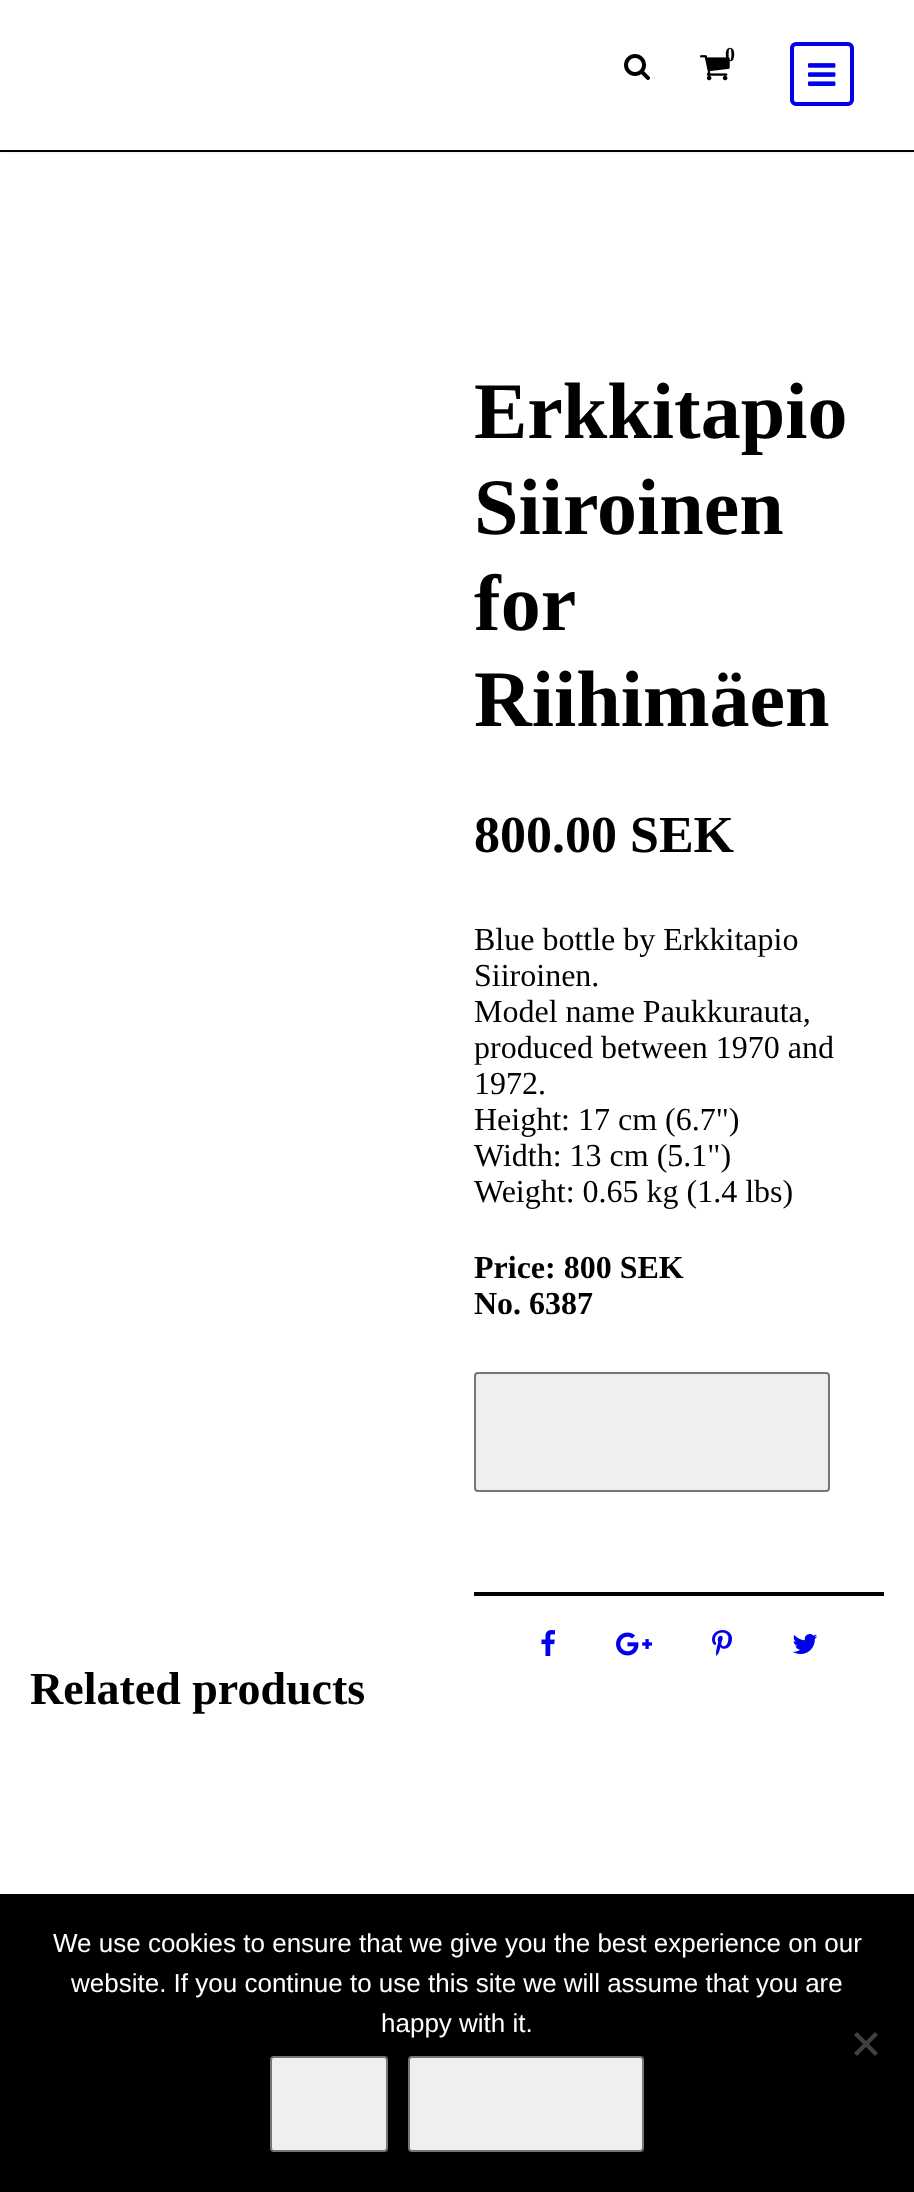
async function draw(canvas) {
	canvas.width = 914;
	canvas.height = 2192;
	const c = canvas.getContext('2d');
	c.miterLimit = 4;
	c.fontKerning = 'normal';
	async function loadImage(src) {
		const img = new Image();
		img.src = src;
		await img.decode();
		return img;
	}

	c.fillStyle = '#fff';
	c.fillRect(0, 0, 914, 2192);
	c.fillStyle = '#000';
	c.fillRect(0, 150, 914, 2);
	c.save();
	c.beginPath();
	c.rect(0, 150, 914, 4);
	c.clip();
	c.fillStyle = '#0000001a';
	c.filter = 'blur(2px)';
	c.beginPath();
	c.rect(0, 2, 914, 150);
	c.fill();
	c.filter = 'none';
	c.restore();
	c.drawImage(await loadImage('img1.png'), 624, 54, 26, 26);
	c.drawImage(await loadImage('img2.png'), 700, 55, 30, 26);
	c.font = 'bold 20px Liberation Serif';
	c.fillText('0', 725, 61);
	c.beginPath();
	c.roundRect(792, 44, 60, 60, 4);
	c.strokeStyle = '#00e';
	c.lineWidth = 4;
	c.stroke();
	c.drawImage(await loadImage('img3.png'), 808, 63, 28, 23);
	c.font = 'bold 80px Liberation Serif';
	for (const [text, x, y] of [
		['Erkkitapio', 474, 438],
		['Siiroinen', 474, 534],
		['for', 474, 630],
		['Riihimäen', 474, 726],
	]) {
		c.fillText(text, x, y);
	}
	c.font = 'bold 52px Liberation Serif';
	c.fillText('800.00 SEK', 474, 852);
	c.font = '32px Liberation Serif';
	for (const [text, x, y] of [
		['Blue bottle by Erkkitapio', 474, 950],
		['Siiroinen.', 474, 986],
		['Model name Paukkurauta,', 474, 1022],
		['produced between 1970 and', 474, 1058],
		['1972.', 474, 1094],
		['Height: 17 cm (6.7")', 474, 1130],
		['Width: 13 cm (5.1")', 474, 1166],
		['Weight: 0.65 kg (1.4 lbs)', 474, 1202],
	]) {
		c.fillText(text, x, y);
	}
	c.font = 'bold 32px Liberation Serif';
	c.fillText('Price: 800 SEK', 474, 1278);
	c.fillText('No. 6387', 474, 1314);
	c.fillStyle = '#efefef';
	c.beginPath();
	c.roundRect(475, 1373, 354, 118, 3);
	c.fill();
	c.strokeStyle = '#767676';
	c.lineWidth = 2;
	c.stroke();
	c.fillStyle = '#000';
	c.fillRect(474, 1592, 410, 4);
	c.drawImage(await loadImage('img4.png'), 541, 1630, 14, 26);
	c.drawImage(await loadImage('img5.png'), 616, 1632, 36, 24);
	c.drawImage(await loadImage('img6.png'), 712, 1630, 20, 26);
	c.drawImage(await loadImage('img7.png'), 792, 1634, 26, 20);
	c.font = 'bold 46px Liberation Serif';
	c.fillText('Related products', 30, 1704);
	c.fillRect(0, 1894, 914, 298);
	c.font = '26px Liberation Sans';
	c.fillStyle = '#fff';
	for (const [text, x, y] of [
		['We use cookies to ensure that we give you the best experience on our', 53, 1952],
		['website. If you continue to use this site we will assume that you are', 71, 1992],
		['happy with it.', 381, 2032],
	]) {
		c.fillText(text, x, y);
	}
	c.fillStyle = '#404040';
	c.beginPath();
	c.moveTo(875, 2032);
	c.lineTo(878, 2035);
	c.lineTo(857, 2056);
	c.lineTo(854, 2053);
	c.closePath();
	c.fill();
	c.beginPath();
	c.moveTo(854, 2035);
	c.lineTo(857, 2032);
	c.lineTo(878, 2053);
	c.lineTo(875, 2056);
	c.closePath();
	c.fill();
	c.fillStyle = '#efefef';
	c.beginPath();
	c.roundRect(271, 2057, 116, 94, 3);
	c.fill();
	c.stroke();
	c.beginPath();
	c.roundRect(409, 2057, 234, 94, 3);
	c.fill();
	c.stroke();
}

draw(document.querySelector('canvas'));
